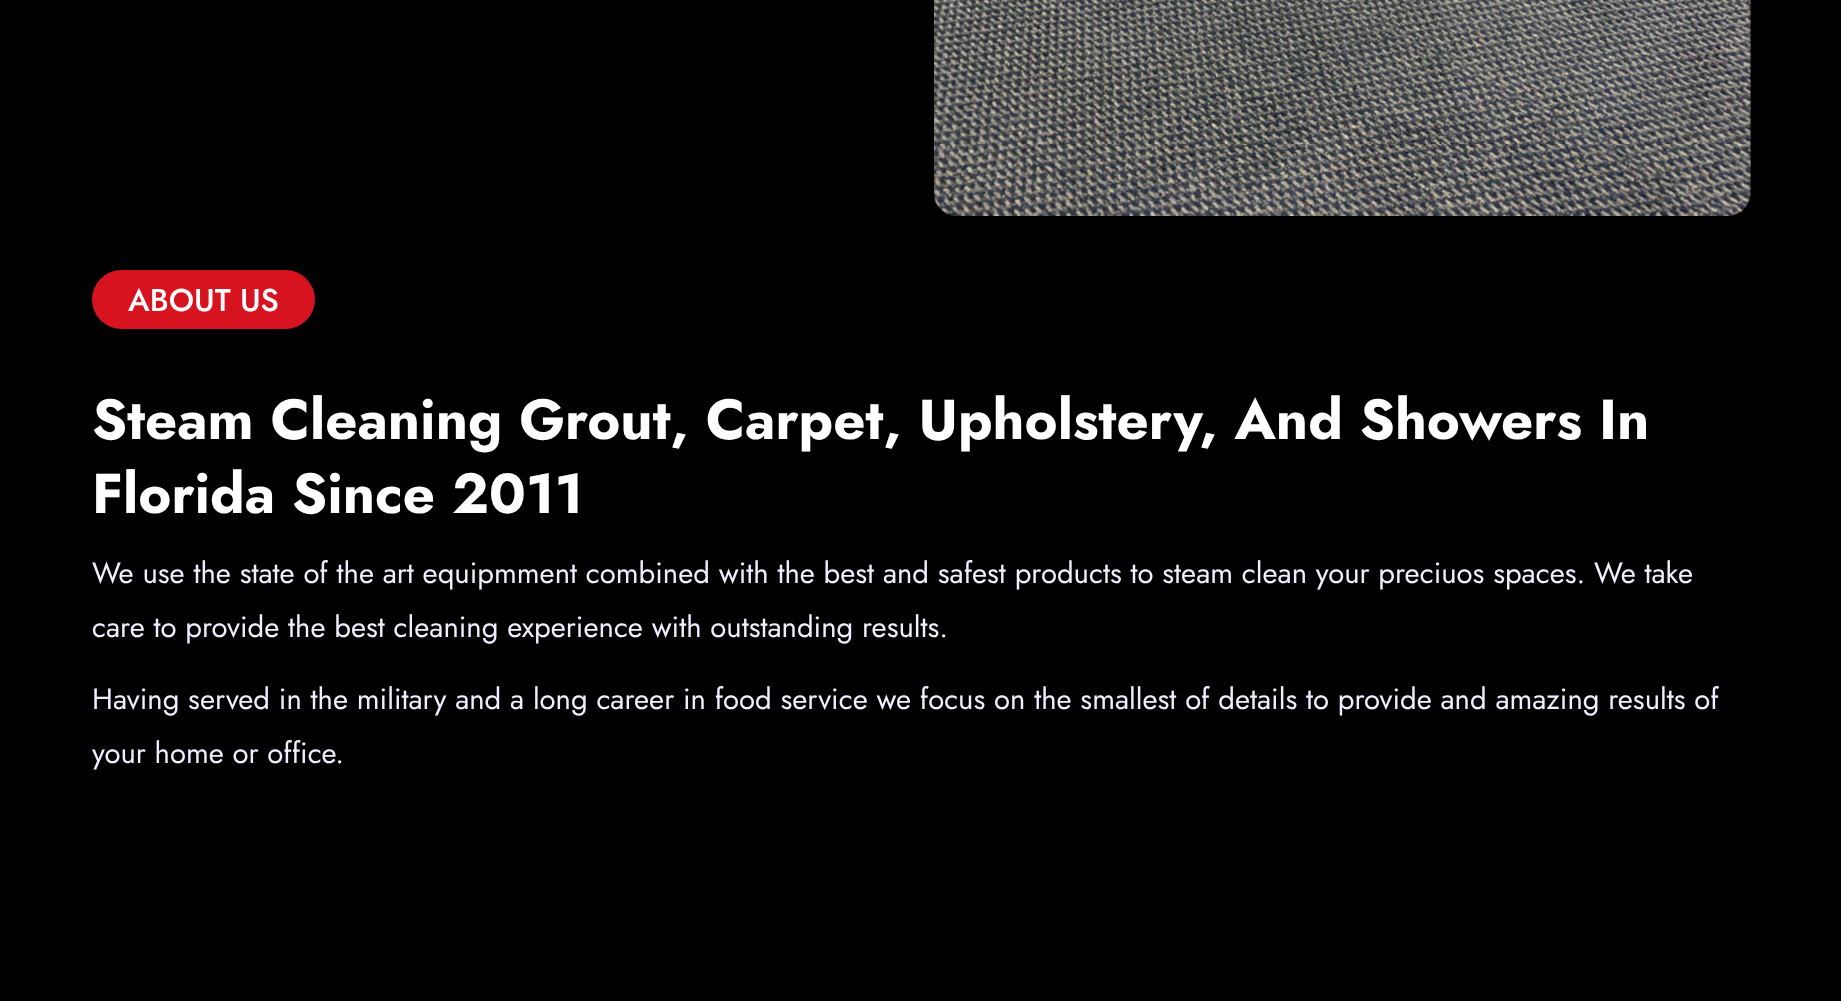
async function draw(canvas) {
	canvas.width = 1841;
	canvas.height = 1001;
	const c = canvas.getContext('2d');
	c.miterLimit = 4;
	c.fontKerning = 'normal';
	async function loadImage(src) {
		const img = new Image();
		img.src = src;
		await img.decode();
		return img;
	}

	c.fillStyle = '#000';
	c.fillRect(0, 0, 1841, 1001);
	c.drawImage(await loadImage('img1.png'), 934, 0, 817, 216);
	c.fillStyle = '#d81320';
	c.beginPath();
	c.roundRect(92, 270, 223, 59, 29.5);
	c.fill();
	c.font = '500 31.5px Jost';
	c.fillStyle = '#fff';
	c.fillText('ABOUT US', 128, 311);
	c.font = 'bold 56.25px Jost';
	c.fillText('Steam Cleaning Grout, Carpet, Upholstery, And Showers In', 92, 439);
	c.fillText('Florida Since 2011', 92, 513);
	c.font = '29.25px Jost';
	c.fillStyle = '#efefff';
	for (const [text, x, y] of [
		['We use the state of the art equipmment combined with the best and safest products to steam clean your preciuos spaces. We take', 92, 583],
		['care to provide the best cleaning experience with outstanding results.', 92, 637],
		['Having served in the military and a long career in food service we focus on the smallest of details to provide and amazing results of', 92, 709],
		['your home or office.', 92, 763],
	]) {
		c.fillText(text, x, y);
	}
}

draw(document.querySelector('canvas'));
